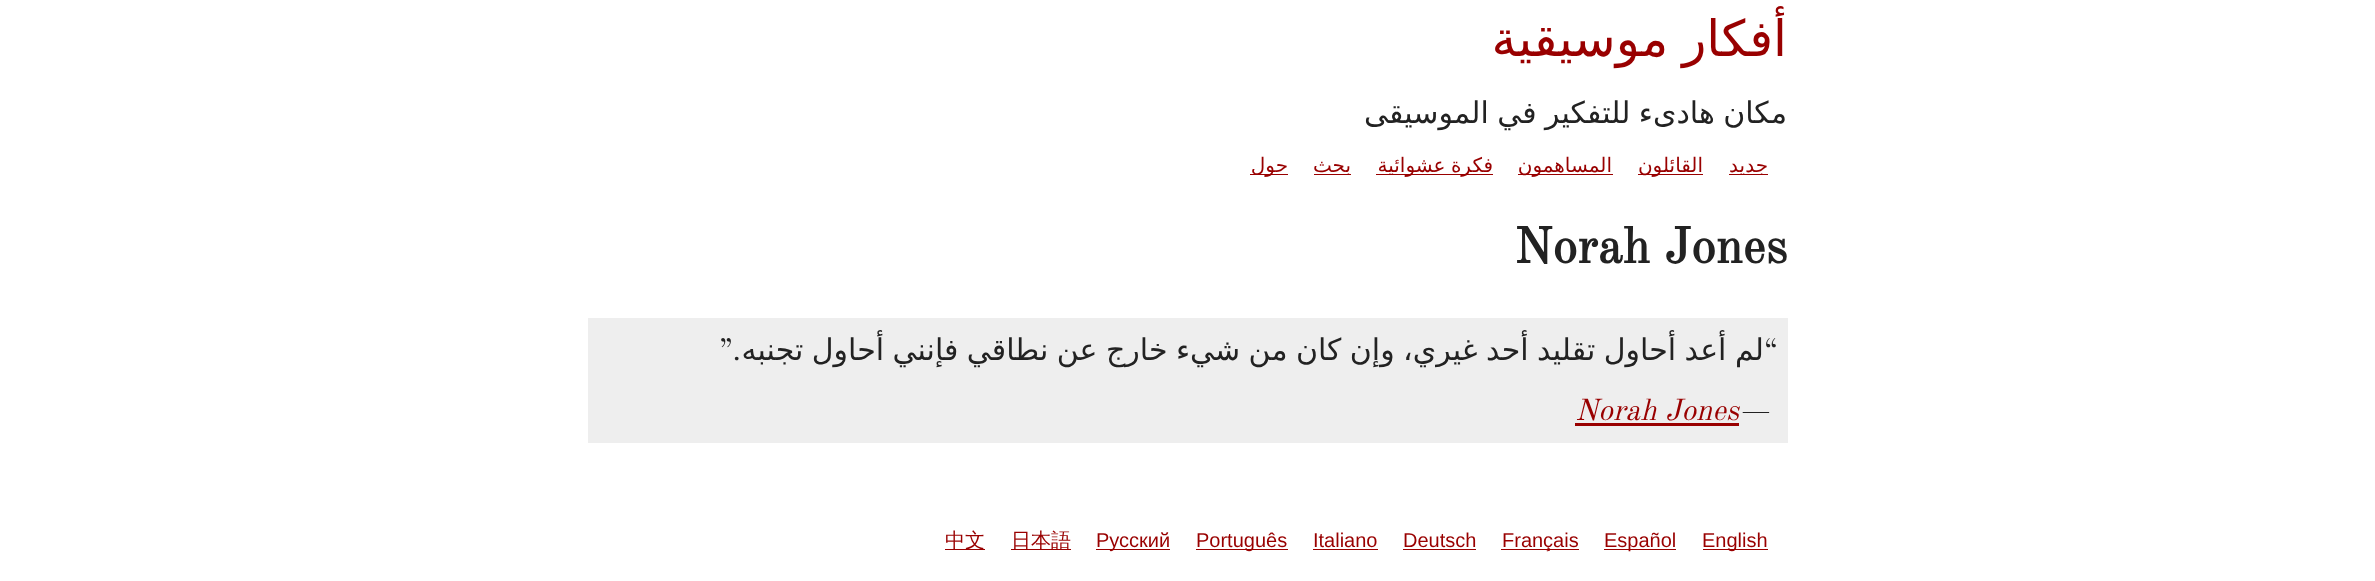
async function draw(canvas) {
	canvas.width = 2375;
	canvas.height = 581;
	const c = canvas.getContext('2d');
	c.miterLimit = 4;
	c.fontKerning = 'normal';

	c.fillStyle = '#fff';
	c.fillRect(0, 0, 2375, 581);
	c.wordSpacing = '-2px';
	c.direction = 'rtl';
	c.font = '50px DejaVu Sans';
	c.fillStyle = '#900';
	c.fillText('أفكار موسيقية', 1787, 56);
	c.wordSpacing = '-1.1px';
	c.font = '30px DejaVu Sans';
	c.fillStyle = '#222';
	c.fillText('مكان هادىء للتفكير في الموسيقى', 1787, 123);
	c.fillStyle = '#900';
	c.fillRect(1729, 174, 39, 1);
	c.wordSpacing = '0px';
	c.font = '20px DejaVu Sans';
	c.fillText('جديد', 1768, 172);
	c.fillRect(1638, 174, 65, 1);
	c.fillText('القائلون', 1703, 172);
	c.fillRect(1518, 174, 95, 1);
	c.fillText('المساهمون', 1612, 172);
	c.fillRect(1376, 174, 117, 1);
	c.wordSpacing = '-1px';
	c.fillText('فكرة عشوائية', 1493, 172);
	c.fillRect(1314, 174, 37, 1);
	c.wordSpacing = '0px';
	c.fillText('بحث', 1351, 172);
	c.fillRect(1250, 174, 38, 1);
	c.fillText('حول', 1288, 172);
	c.direction = 'ltr';
	c.font = 'bold 50px Old Standard TT';
	c.fillStyle = '#222';
	c.fillText('Norah Jones', 1514, 263);
	c.fillStyle = '#eee';
	c.fillRect(588, 318, 1200, 125);
	c.font = '30px Old Standard TT';
	c.fillStyle = '#222';
	c.fillText('“', 1764, 360);
	c.wordSpacing = '-1.1px';
	c.direction = 'rtl';
	c.font = '30px DejaVu Sans';
	c.fillText('لم أعد أحاول تقليد أحد غيري، وإن كان من شيء خارج عن نطاقي فإنني أحاول تجنبه', 1764, 360);
	c.wordSpacing = '0px';
	c.direction = 'ltr';
	c.font = '30px Old Standard TT';
	c.fillText('”', 719, 360);
	c.direction = 'rtl';
	c.fillText('.', 741, 360);
	c.direction = 'ltr';
	c.font = 'italic 30px Old Standard TT';
	c.fillText('—', 1739, 420);
	c.fillStyle = '#900';
	c.fillText('Norah Jones', 1575, 420);
	c.fillRect(1575, 423, 164, 3);
	c.fillRect(1703, 549, 65, 1);
	c.font = '20px Liberation Sans';
	c.fillText('English', 1702, 547);
	c.fillRect(1604, 549, 72, 1);
	c.fillText('Español', 1604, 547);
	c.fillRect(1501, 549, 78, 1);
	c.fillText('Français', 1502, 547);
	c.fillText('Deutsch', 1403, 547);
	c.fillRect(1403, 549, 73, 1);
	c.fillText('Italiano', 1313, 547);
	c.fillRect(1313, 549, 65, 1);
	c.fillRect(1196, 549, 92, 1);
	c.fillText('Português', 1196, 547);
	c.fillRect(1096, 549, 74, 1);
	c.fillText('Русский', 1096, 547);
	c.fillRect(1011, 549, 60, 1);
	c.font = '500 20px WenQuanYi Zen Hei';
	c.fillText('日本語', 1011, 547);
	c.fillRect(945, 549, 40, 1);
	c.fillText('中文', 945, 547);
}

draw(document.querySelector('canvas'));
